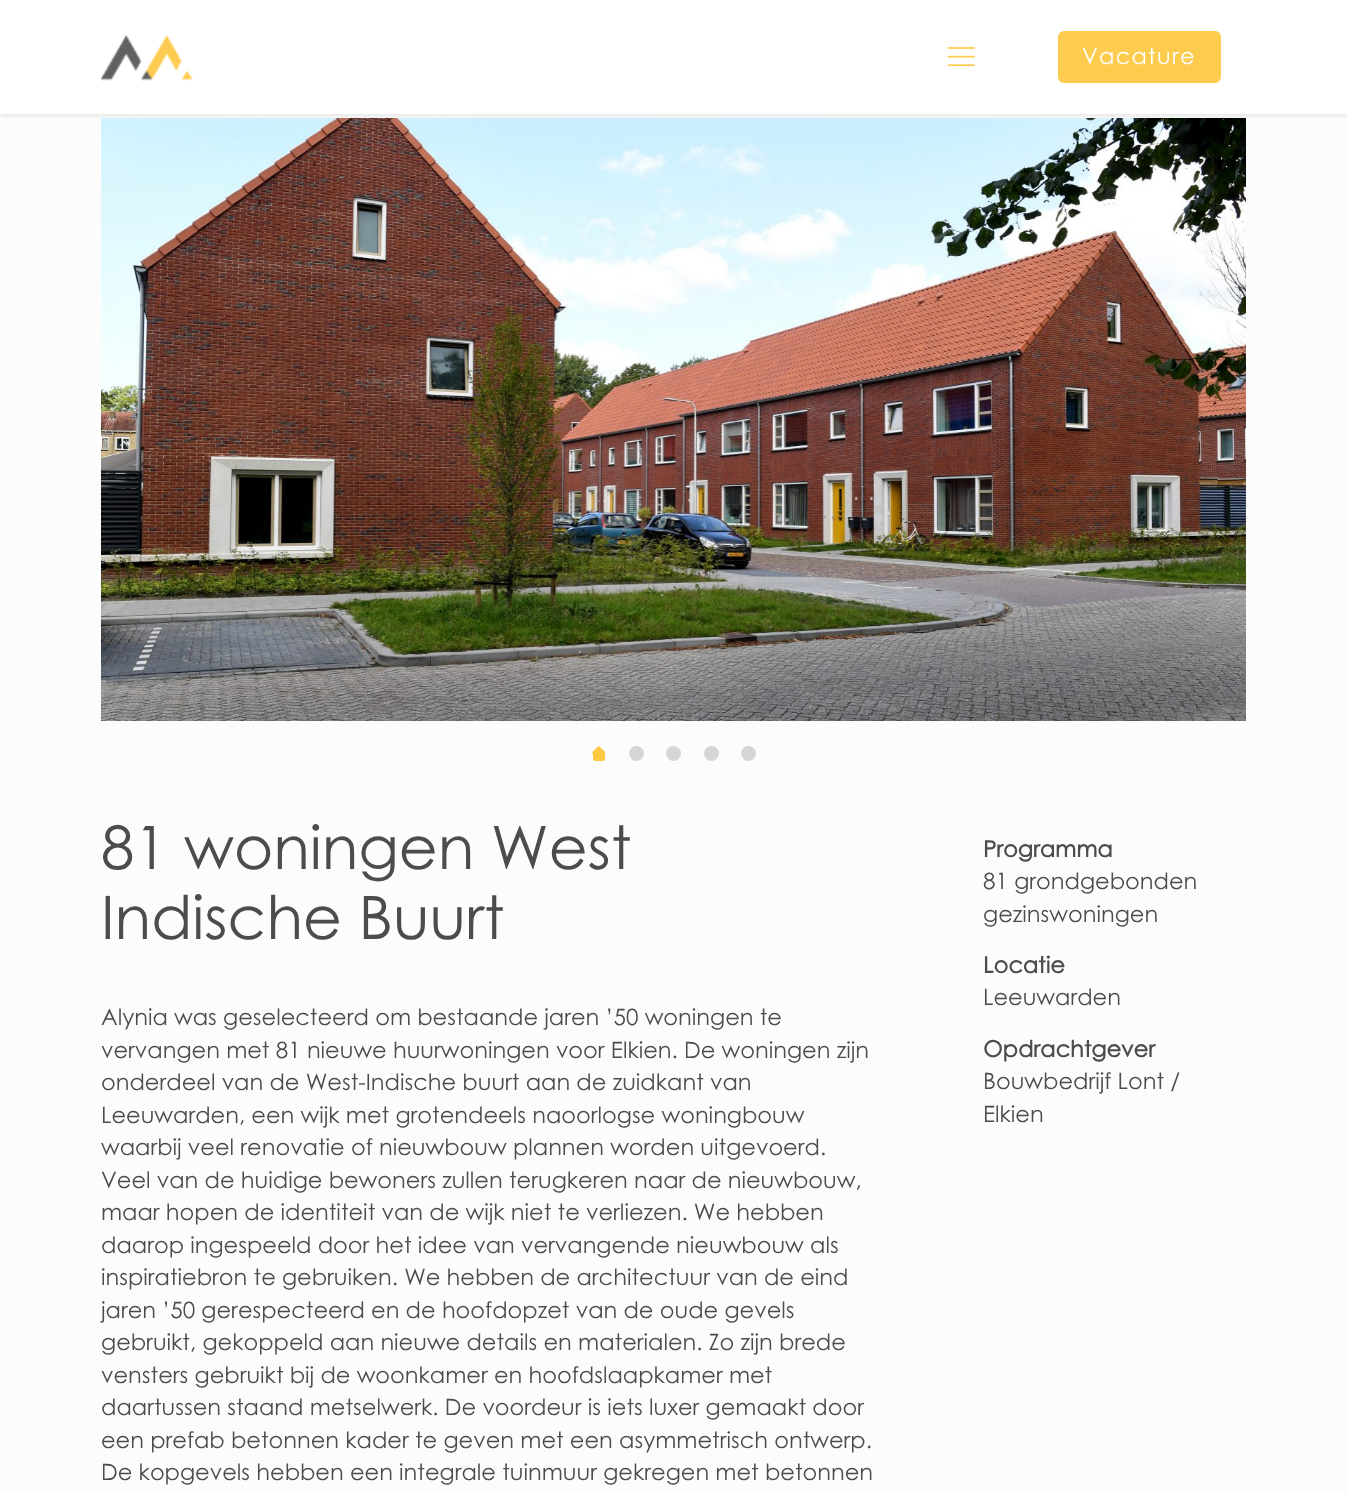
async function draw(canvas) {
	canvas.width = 1347;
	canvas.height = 1494;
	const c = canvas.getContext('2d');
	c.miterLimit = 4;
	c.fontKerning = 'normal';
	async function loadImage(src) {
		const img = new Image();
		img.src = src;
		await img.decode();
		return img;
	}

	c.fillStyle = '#fcfcfc';
	c.fillRect(0, 0, 1347, 1494);
	c.fillStyle = '#fff';
	c.fillRect(0, 0, 1347, 5);
	c.drawImage(await loadImage('img3.png'), 101, 118, 1145, 603);
	c.save();
	c.beginPath();
	c.rect(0, 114, 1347, 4);
	c.clip();
	c.fillStyle = '#00000017';
	c.filter = 'blur(3px)';
	c.beginPath();
	c.rect(0, 3, 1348, 113);
	c.fill();
	c.filter = 'none';
	c.restore();
	c.fillStyle = '#ffffffed';
	c.fillRect(0, 5, 1347, 109);
	c.drawImage(await loadImage('img1.png'), 101, 34, 93, 47);
	c.drawImage(await loadImage('img2.png'), 947, 47, 28, 20);
	c.fillStyle = '#fdcc4f';
	c.beginPath();
	c.roundRect(1058, 31, 163, 52, 6);
	c.fill();
	c.letterSpacing = '1.25px';
	c.font = '22.5px Century Gothic';
	c.fillStyle = '#fff';
	c.fillText('Vacature', 1082, 64);
	c.fillStyle = '#fdc842';
	c.beginPath();
	c.roundRect(593, 751, 12, 10, 2.5);
	c.fill();
	c.beginPath();
	c.moveTo(599.5, 746.5);
	c.lineTo(604, 751);
	c.bezierCurveTo(606.5, 753.5, 604.5, 754, 602.5, 756.5);
	c.bezierCurveTo(600, 758.5, 599.5, 760.5, 597, 758);
	c.lineTo(592.5, 753.5);
	c.bezierCurveTo(591, 752.5, 594.5, 750, 595, 749.5);
	c.bezierCurveTo(596, 748.5, 598, 745, 599.5, 746.5);
	c.closePath();
	c.fill();
	c.fillStyle = '#d6d6d6';
	c.beginPath();
	c.arc(636.5, 753.5, 7.5, 0, 2 * Math.PI);
	c.fill();
	c.beginPath();
	c.arc(673.5, 753.5, 7.5, 0, 2 * Math.PI);
	c.fill();
	c.beginPath();
	c.arc(711.5, 753.5, 7.5, 0, 2 * Math.PI);
	c.fill();
	c.beginPath();
	c.arc(748.5, 753.5, 7.5, 0, 2 * Math.PI);
	c.fill();
	c.letterSpacing = '0px';
	c.font = '60px Century Gothic';
	c.fillStyle = '#4c4c4c';
	c.fillText('81 woningen West', 101, 869);
	c.fillText('Indische Buurt', 101, 939);
	c.font = '22.5px Century Gothic';
	for (const [text, x, y] of [
		['Alynia was geselecteerd om bestaande jaren ’50 woningen te', 101, 1025],
		['vervangen met 81 nieuwe huurwoningen voor Elkien. De woningen zijn', 101, 1058],
		['onderdeel van de West-Indische buurt aan de zuidkant van', 101, 1090],
		['Leeuwarden, een wijk met grotendeels naoorlogse woningbouw', 101, 1123],
		['waarbij veel renovatie of nieuwbouw plannen worden uitgevoerd.', 101, 1155],
		['Veel van de huidige bewoners zullen terugkeren naar de nieuwbouw,', 101, 1188],
		['maar hopen de identiteit van de wijk niet te verliezen. We hebben', 101, 1220],
		['daarop ingespeeld door het idee van vervangende nieuwbouw als', 101, 1253],
		['inspiratiebron te gebruiken. We hebben de architectuur van de eind', 101, 1285],
		['jaren ’50 gerespecteerd en de hoofdopzet van de oude gevels', 101, 1318],
		['gebruikt, gekoppeld aan nieuwe details en materialen. Zo zijn brede', 101, 1350],
		['vensters gebruikt bij de woonkamer en hoofdslaapkamer met', 101, 1383],
		['daartussen staand metselwerk. De voordeur is iets luxer gemaakt door', 101, 1415],
		['een prefab betonnen kader te geven met een asymmetrisch ontwerp.', 101, 1448],
		['De kopgevels hebben een integrale tuinmuur gekregen met betonnen', 101, 1480],
	]) {
		c.fillText(text, x, y);
	}
	c.font = 'bold 22.5px Century Gothic';
	c.fillText('Programma', 983, 857);
	c.font = '22.5px Century Gothic';
	c.fillText('81 grondgebonden', 983, 889);
	c.fillText('gezinswoningen', 983, 922);
	c.font = 'bold 22.5px Century Gothic';
	c.fillText('Locatie', 983, 973);
	c.font = '22.5px Century Gothic';
	c.fillText('Leeuwarden', 983, 1005);
	c.font = 'bold 22.5px Century Gothic';
	c.fillText('Opdrachtgever', 983, 1057);
	c.font = '22.5px Century Gothic';
	c.fillText('Bouwbedrijf Lont /', 983, 1089);
	c.fillText('Elkien', 983, 1122);
}

draw(document.querySelector('canvas'));
